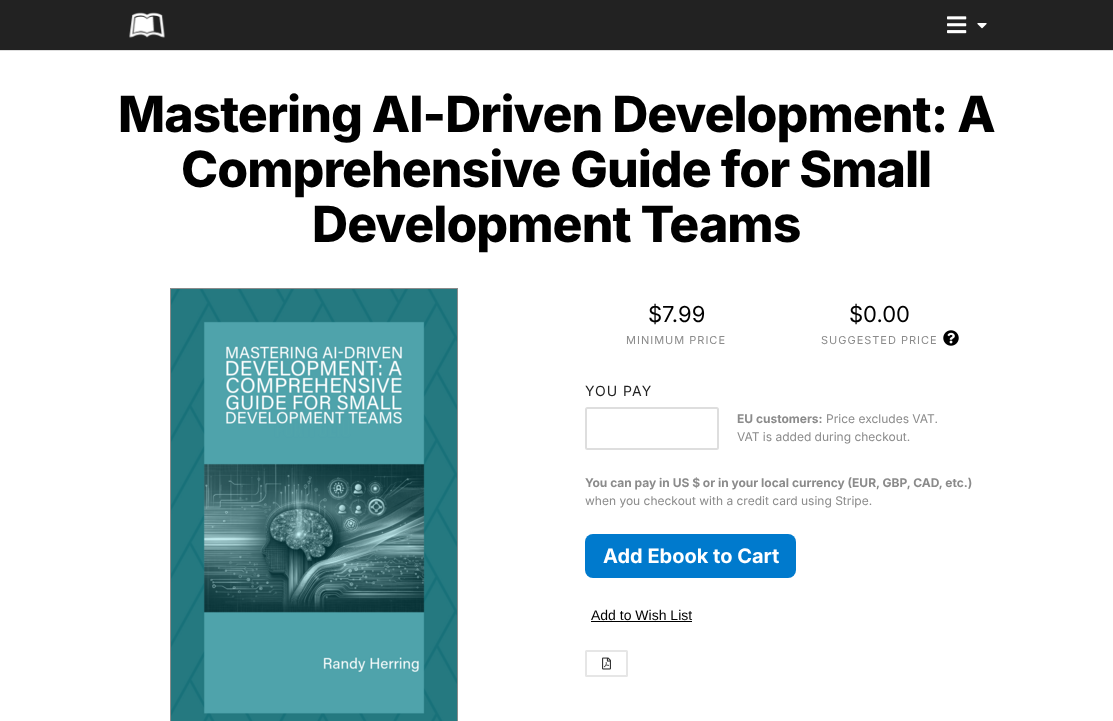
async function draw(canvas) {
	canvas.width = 1113;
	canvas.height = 721;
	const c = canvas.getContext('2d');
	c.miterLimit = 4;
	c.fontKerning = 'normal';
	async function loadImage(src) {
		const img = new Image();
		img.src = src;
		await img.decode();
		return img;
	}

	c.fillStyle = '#222';
	c.fillRect(0, 0, 1113, 721);
	c.drawImage(await loadImage('img1.png'), 129, 12, 36, 26);
	c.drawImage(await loadImage('img2.png'), 947, 16, 20, 18);
	c.drawImage(await loadImage('img3.png'), 977, 23, 10, 6);
	c.fillStyle = '#fff';
	c.fillRect(0, 51, 1113, 670);
	c.fillStyle = '#dedede';
	c.fillRect(0, 50, 1113, 1);
	c.letterSpacing = '-1px';
	c.font = '800 50px Inter';
	c.fillStyle = '#000';
	for (const [text, x, y] of [
		['Mastering AI-Driven Development: A', 118, 132],
		['Comprehensive Guide for Small', 181, 187],
		['Development Teams', 312, 242],
	]) {
		c.fillText(text, x, y);
	}
	c.strokeStyle = '#8b8b8b';
	c.strokeRect(170.5, 288.5, 287, 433);
	c.drawImage(await loadImage('img4.png'), 171, 289, 286, 432);
	c.letterSpacing = '0px';
	c.font = '22px Inter';
	c.fillText('$7.99', 648, 322);
	c.letterSpacing = '1px';
	c.font = '11px Inter';
	c.fillStyle = '#8b8b8b';
	c.fillText('MINIMUM PRICE', 626, 344);
	c.letterSpacing = '0px';
	c.font = '22px Inter';
	c.fillStyle = '#000';
	c.fillText('$0.00', 849, 322);
	c.letterSpacing = '1px';
	c.font = '11px Inter';
	c.fillStyle = '#8b8b8b';
	c.fillText('SUGGESTED PRICE', 821, 344);
	c.drawImage(await loadImage('img5.png'), 943, 330, 16, 16);
	c.font = '14px Inter';
	c.fillStyle = '#222';
	c.fillText('YOU PAY', 585, 396);
	c.beginPath();
	c.roundRect(586, 408, 132, 41, 1.5);
	c.strokeStyle = '#dedede';
	c.lineWidth = 2;
	c.stroke();
	c.letterSpacing = '0px';
	c.font = 'bold 12px Inter';
	c.fillStyle = '#8b8b8b';
	c.fillText('EU customers:', 737, 423);
	c.font = '12px Inter';
	c.fillText('Price excludes VAT.', 826, 423);
	c.fillText('VAT is added during checkout.', 737, 441);
	c.font = 'bold 12px Inter';
	c.fillText('You can pay in US $ or in your local currency (EUR, GBP, CAD, etc.)', 585, 487);
	c.font = '12px Inter';
	c.fillText('when you checkout with a credit card using Stripe.', 585, 505);
	c.fillStyle = '#007acd';
	c.beginPath();
	c.roundRect(585, 534, 211, 44, 8);
	c.fill();
	c.font = 'bold 20px Inter';
	c.fillStyle = '#fff';
	c.fillText('Add Ebook to Cart', 603, 563);
	c.font = '14px Liberation Sans';
	c.fillStyle = '#000';
	c.fillText('Add to Wish List', 591, 620);
	c.fillRect(591, 621, 101, 1);
	c.beginPath();
	c.roundRect(586, 651, 41, 25, 0.5);
	c.strokeStyle = '#e6e6e6';
	c.stroke();
	c.drawImage(await loadImage('img6.png'), 602, 657, 9, 13);
}

draw(document.querySelector('canvas'));
